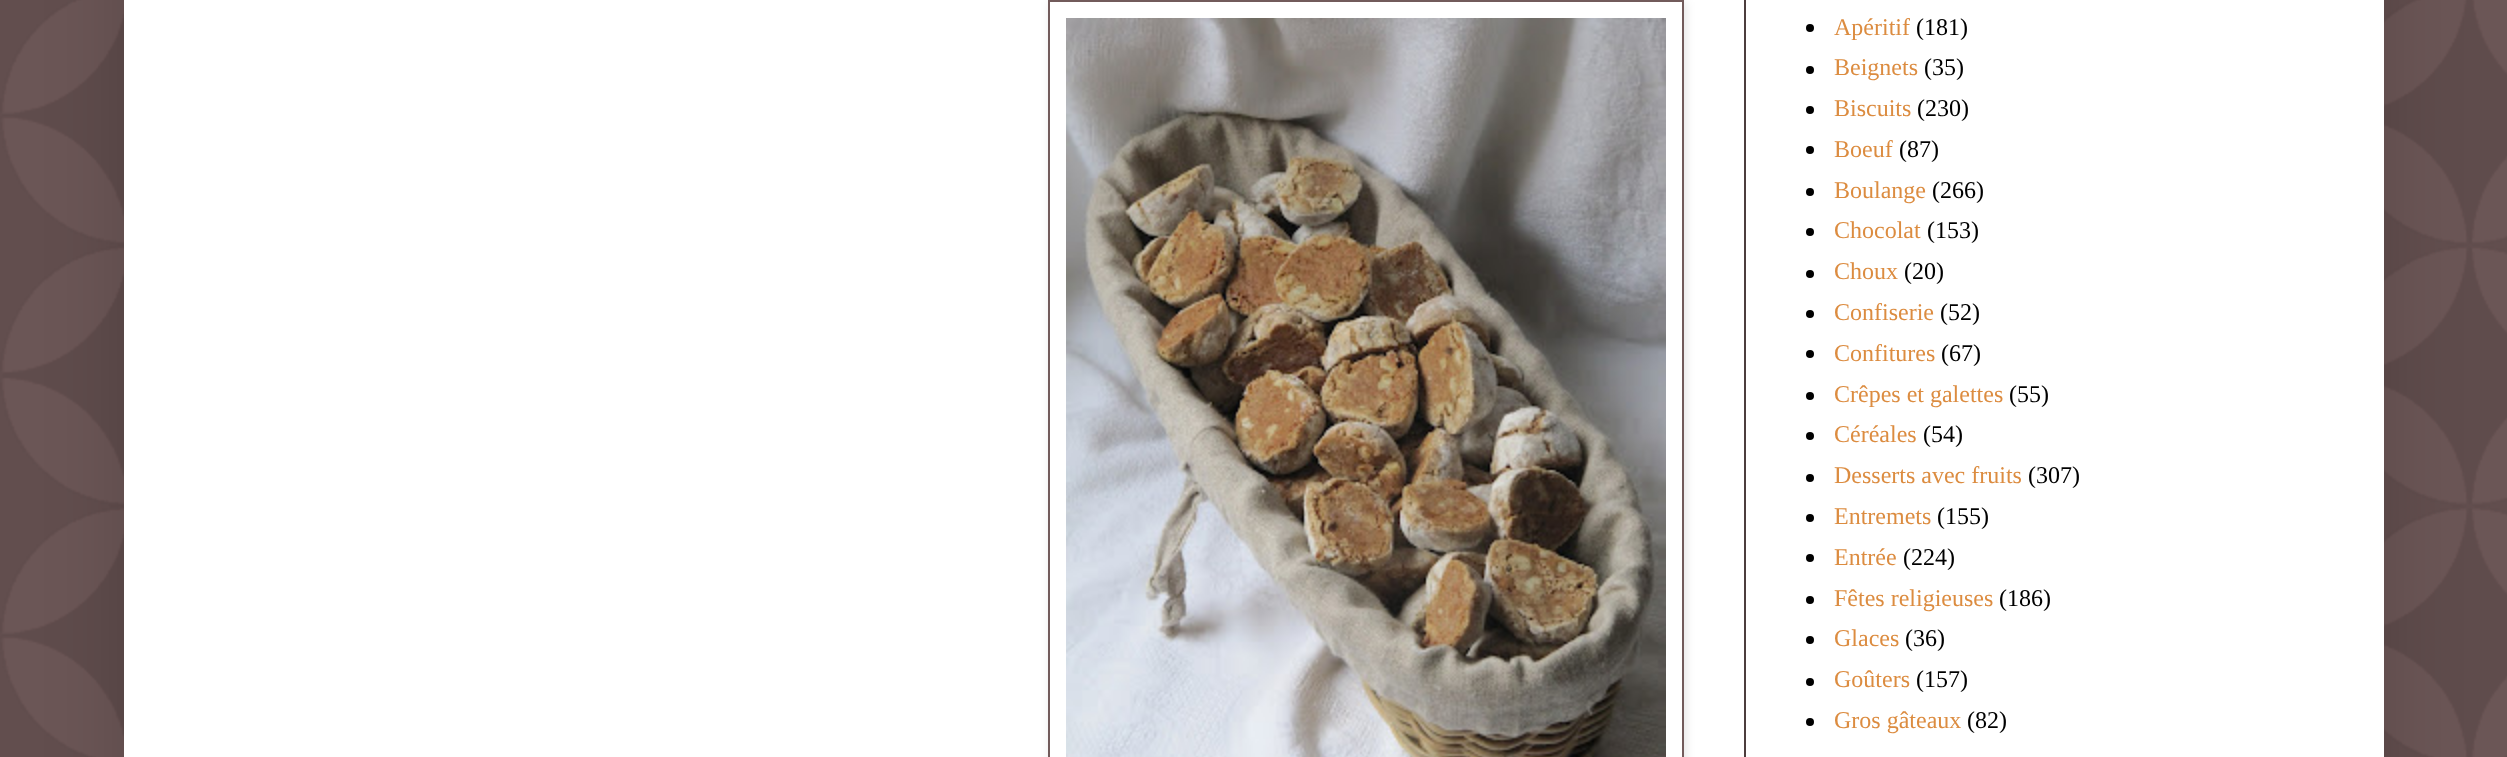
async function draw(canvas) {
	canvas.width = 2507;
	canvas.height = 757;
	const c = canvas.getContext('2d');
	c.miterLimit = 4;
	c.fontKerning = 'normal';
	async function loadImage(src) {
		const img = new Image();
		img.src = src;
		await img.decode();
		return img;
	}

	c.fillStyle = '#725b5b';
	c.fillRect(0, 0, 2507, 757);
	c.drawImage(await loadImage('img1.png'), 0, 0, 2507, 757);
	c.fillStyle = '#00000026';
	c.filter = 'blur(40px)';
	c.beginPath();
	c.rect(124, -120, 2260, 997);
	c.fill();
	c.filter = 'none';
	c.fillStyle = '#fff';
	c.fillRect(124, 0, 2260, 757);
	c.fillStyle = '#4c3d3d';
	c.fillRect(1744, 0, 2, 757);
	c.save();
	c.beginPath();
	c.moveTo(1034, 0);
	c.lineTo(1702, 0);
	c.lineTo(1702, 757);
	c.lineTo(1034, 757);
	c.closePath();
	c.moveTo(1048, 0);
	c.lineTo(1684, 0);
	c.lineTo(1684, 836);
	c.lineTo(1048, 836);
	c.closePath();
	c.clip('evenodd');
	c.fillStyle = '#0000001a';
	c.filter = 'blur(5px)';
	c.beginPath();
	c.rect(1050, 2, 636, 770);
	c.fill();
	c.filter = 'none';
	c.restore();
	c.strokeStyle = '#725b5b';
	c.lineWidth = 2;
	c.strokeRect(1049, 1, 634, 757);
	c.drawImage(await loadImage('img2.png'), 1066, 18, 600, 739);
	c.fillStyle = '#000';
	c.beginPath();
	c.arc(1810, 28, 4, 0, 2 * Math.PI);
	c.fill();
	c.font = '24px Liberation Serif';
	c.fillStyle = '#dc8c40';
	c.fillText('Apéritif', 1834, 35);
	c.fillStyle = '#000';
	c.fillText('(181)', 1916, 35);
	c.beginPath();
	c.arc(1810, 70, 4, 0, 2 * Math.PI);
	c.fill();
	c.fillStyle = '#dc8c40';
	c.fillText('Beignets', 1834, 75);
	c.fillStyle = '#000';
	c.fillText('(35)', 1924, 75);
	c.beginPath();
	c.arc(1810, 110, 4, 0, 2 * Math.PI);
	c.fill();
	c.fillStyle = '#dc8c40';
	c.fillText('Biscuits', 1834, 116);
	c.fillStyle = '#000';
	c.fillText('(230)', 1917, 116);
	c.beginPath();
	c.arc(1810, 150, 4, 0, 2 * Math.PI);
	c.fill();
	c.fillStyle = '#dc8c40';
	c.fillText('Boeuf', 1834, 157);
	c.fillStyle = '#000';
	c.fillText('(87)', 1899, 157);
	c.beginPath();
	c.arc(1810, 192, 4, 0, 2 * Math.PI);
	c.fill();
	c.fillStyle = '#dc8c40';
	c.fillText('Boulange', 1834, 198);
	c.fillStyle = '#000';
	c.fillText('(266)', 1932, 198);
	c.beginPath();
	c.arc(1810, 232, 4, 0, 2 * Math.PI);
	c.fill();
	c.fillStyle = '#dc8c40';
	c.fillText('Chocolat', 1834, 238);
	c.fillStyle = '#000';
	c.fillText('(153)', 1927, 238);
	c.beginPath();
	c.arc(1810, 274, 4, 0, 2 * Math.PI);
	c.fill();
	c.fillStyle = '#dc8c40';
	c.fillText('Choux', 1834, 279);
	c.fillStyle = '#000';
	c.fillText('(20)', 1904, 279);
	c.beginPath();
	c.arc(1810, 314, 4, 0, 2 * Math.PI);
	c.fill();
	c.fillStyle = '#dc8c40';
	c.fillText('Confiserie', 1834, 320);
	c.fillStyle = '#000';
	c.fillText('(52)', 1940, 320);
	c.beginPath();
	c.arc(1810, 354, 4, 0, 2 * Math.PI);
	c.fill();
	c.fillStyle = '#dc8c40';
	c.fillText('Confitures', 1834, 361);
	c.fillStyle = '#000';
	c.fillText('(67)', 1941, 361);
	c.beginPath();
	c.arc(1810, 396, 4, 0, 2 * Math.PI);
	c.fill();
	c.fillStyle = '#dc8c40';
	c.fillText('Crêpes et galettes', 1834, 402);
	c.fillStyle = '#000';
	c.fillText('(55)', 2009, 402);
	c.beginPath();
	c.arc(1810, 436, 4, 0, 2 * Math.PI);
	c.fill();
	c.fillStyle = '#dc8c40';
	c.fillText('Céréales', 1834, 442);
	c.fillStyle = '#000';
	c.fillText('(54)', 1923, 442);
	c.beginPath();
	c.arc(1810, 478, 4, 0, 2 * Math.PI);
	c.fill();
	c.fillStyle = '#dc8c40';
	c.fillText('Desserts avec fruits', 1834, 483);
	c.fillStyle = '#000';
	c.fillText('(307)', 2028, 483);
	c.beginPath();
	c.arc(1810, 518, 4, 0, 2 * Math.PI);
	c.fill();
	c.fillStyle = '#dc8c40';
	c.fillText('Entremets', 1834, 524);
	c.fillStyle = '#000';
	c.fillText('(155)', 1937, 524);
	c.beginPath();
	c.arc(1810, 558, 4, 0, 2 * Math.PI);
	c.fill();
	c.fillStyle = '#dc8c40';
	c.fillText('Entrée', 1834, 565);
	c.fillStyle = '#000';
	c.fillText('(224)', 1903, 565);
	c.beginPath();
	c.arc(1810, 600, 4, 0, 2 * Math.PI);
	c.fill();
	c.fillStyle = '#dc8c40';
	c.fillText('Fêtes religieuses', 1834, 606);
	c.fillStyle = '#000';
	c.fillText('(186)', 1999, 606);
	c.beginPath();
	c.arc(1810, 640, 4, 0, 2 * Math.PI);
	c.fill();
	c.fillStyle = '#dc8c40';
	c.fillText('Glaces', 1834, 646);
	c.fillStyle = '#000';
	c.fillText('(36)', 1905, 646);
	c.beginPath();
	c.arc(1810, 682, 4, 0, 2 * Math.PI);
	c.fill();
	c.fillStyle = '#dc8c40';
	c.fillText('Goûters', 1834, 687);
	c.fillStyle = '#000';
	c.fillText('(157)', 1916, 687);
	c.beginPath();
	c.arc(1810, 722, 4, 0, 2 * Math.PI);
	c.fill();
	c.fillStyle = '#dc8c40';
	c.fillText('Gros gâteaux', 1834, 728);
	c.fillStyle = '#000';
	c.fillText('(82)', 1967, 728);
}

draw(document.querySelector('canvas'));
